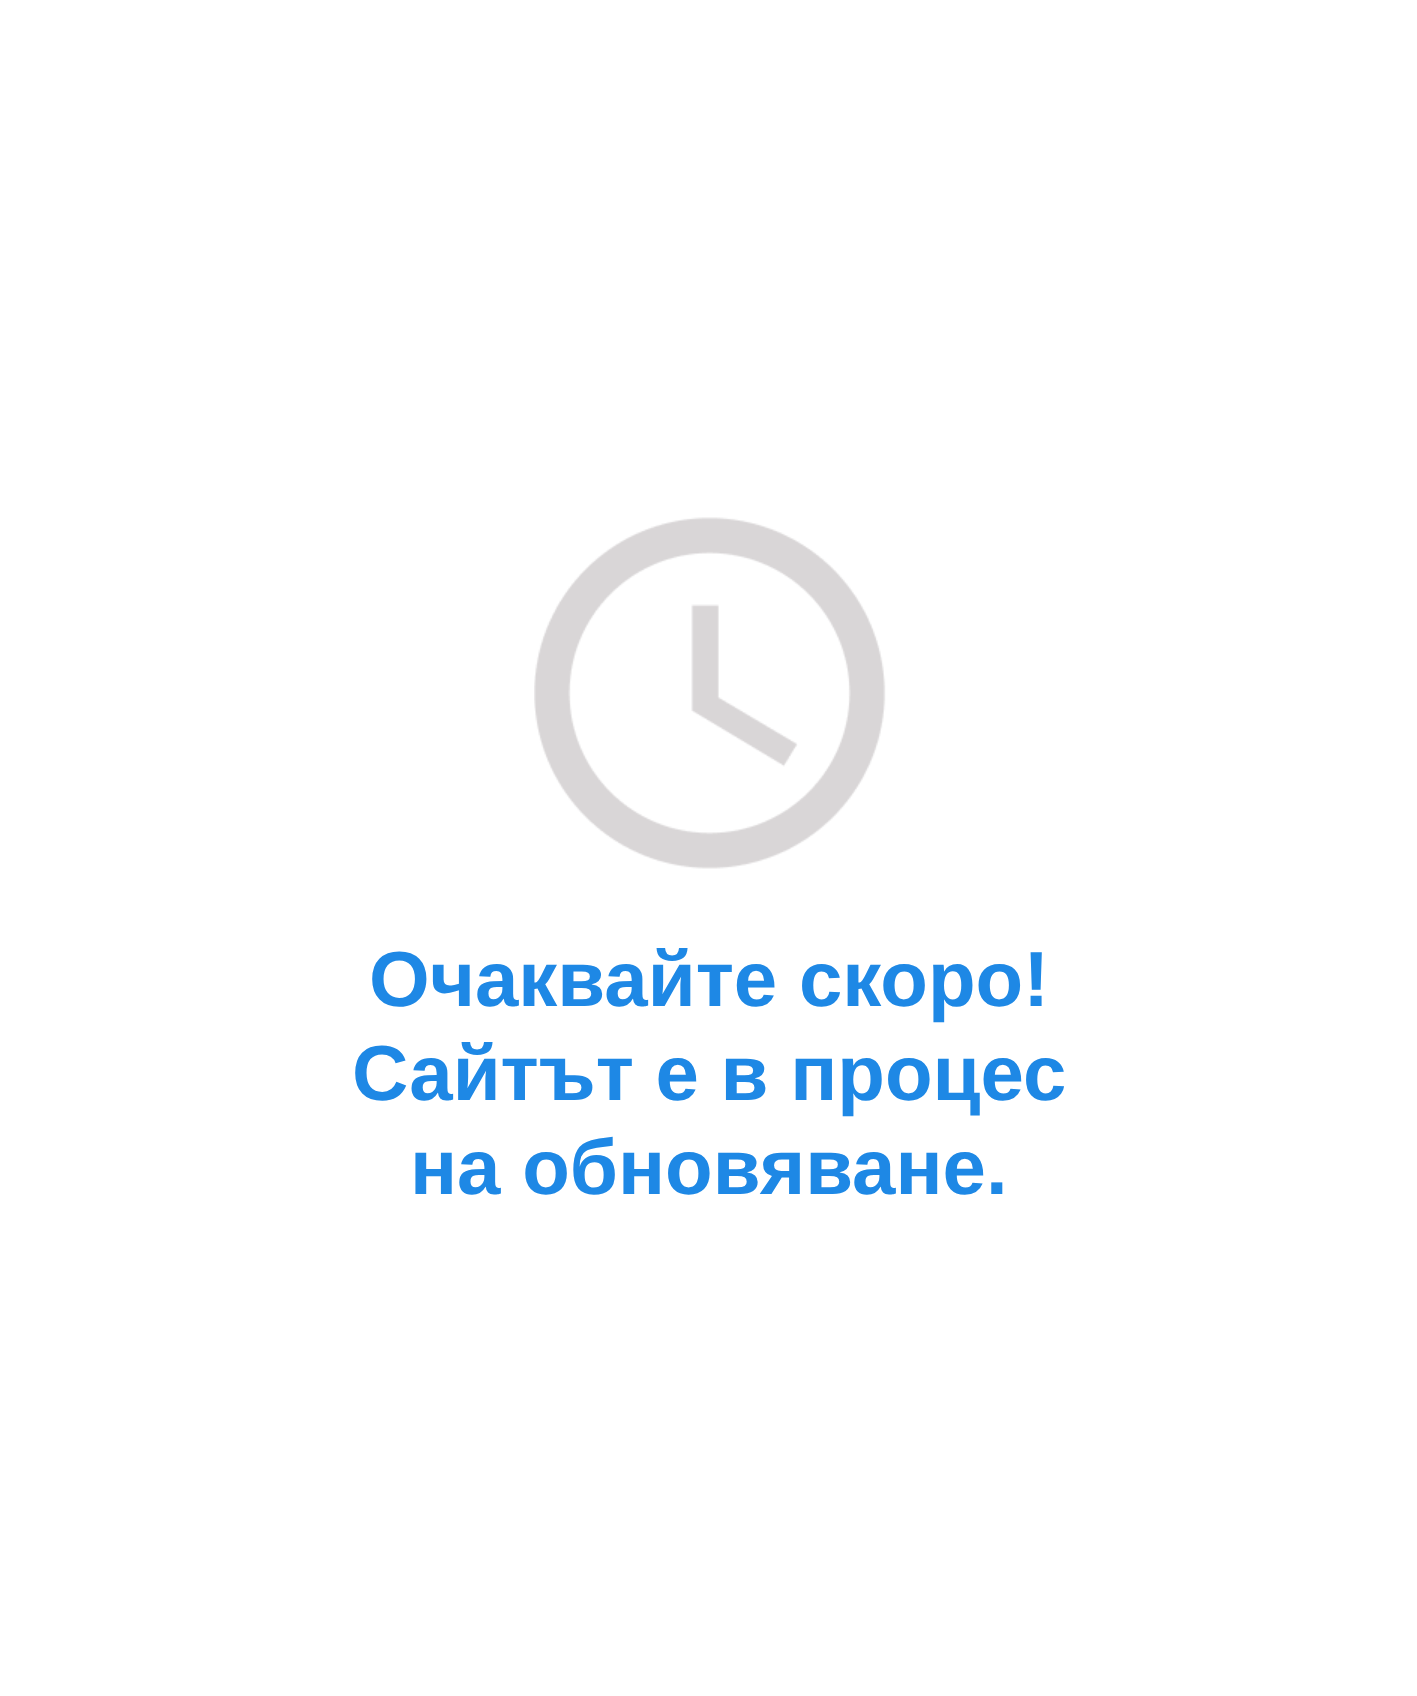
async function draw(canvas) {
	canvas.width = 1417;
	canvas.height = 1696;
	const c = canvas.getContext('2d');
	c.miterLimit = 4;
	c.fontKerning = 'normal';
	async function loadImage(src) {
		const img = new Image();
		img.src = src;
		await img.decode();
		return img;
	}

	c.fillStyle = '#fff';
	c.fillRect(0, 0, 1417, 1696);
	c.drawImage(await loadImage('img1.png'), 534, 517, 352, 352);
	c.font = 'bold 78px Liberation Sans';
	c.fillStyle = '#1e88e5';
	for (const [text, x, y] of [
		['Очаквайте скоро!', 369, 1006],
		['Сайтът е в процес', 352, 1100],
		['на обновяване.', 410, 1194],
	]) {
		c.fillText(text, x, y);
	}
}

draw(document.querySelector('canvas'));
